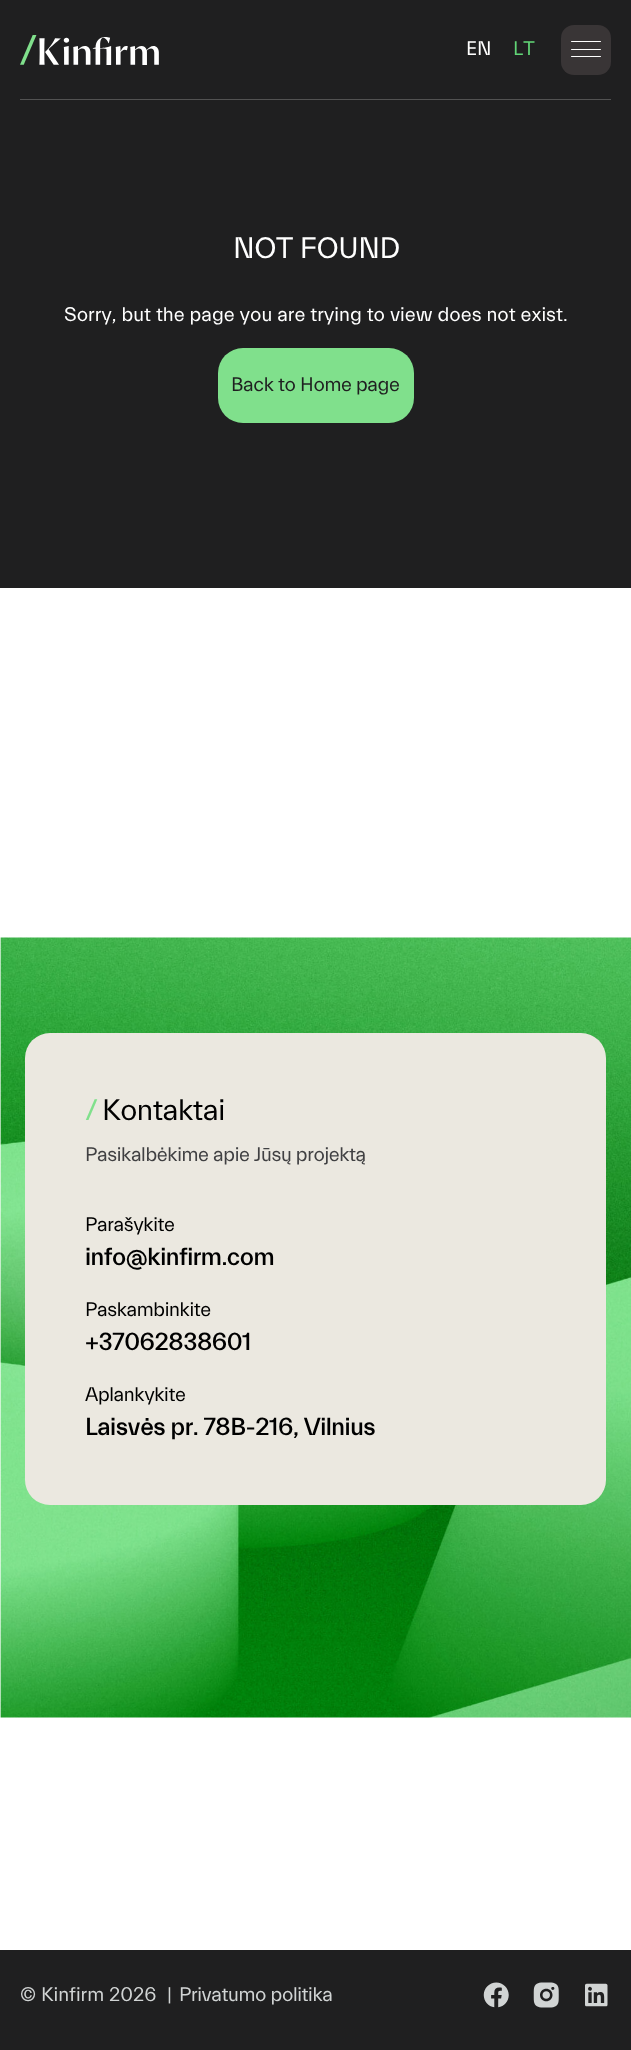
async function draw(canvas) {
	canvas.width = 631;
	canvas.height = 2050;
	const c = canvas.getContext('2d');
	c.miterLimit = 4;
	c.fontKerning = 'normal';
	async function loadImage(src) {
		const img = new Image();
		img.src = src;
		await img.decode();
		return img;
	}

	c.fillStyle = '#fff';
	c.fillRect(0, 0, 631, 2050);
	c.fillStyle = '#1f1f20';
	c.fillRect(0, 0, 631, 588);
	c.fillStyle = '#525252';
	c.fillRect(20, 99, 591, 1);
	c.drawImage(await loadImage('img1.png'), 20, 35, 139, 30);
	c.font = '20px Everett';
	c.fillStyle = '#fff';
	c.fillText('EN', 466, 55);
	c.fillStyle = '#61d576';
	c.fillText('LT', 513, 55);
	c.fillStyle = '#393536';
	c.beginPath();
	c.roundRect(561, 25, 50, 50, 13);
	c.fill();
	c.fillStyle = '#fff';
	c.beginPath();
	c.roundRect(571, 56, 30, 1, 0.5);
	c.fill();
	c.beginPath();
	c.roundRect(571, 41, 30, 1, 0.5);
	c.fill();
	c.beginPath();
	c.roundRect(571, 49, 30, 1, 0.5);
	c.fill();
	c.letterSpacing = '-0.5px';
	c.font = '30px Everett';
	c.fillText('NOT FOUND', 233, 258);
	c.letterSpacing = '0px';
	c.font = '20px Everett';
	c.fillText('Sorry, but the page you are trying to view does not exist.', 64, 321);
	c.fillStyle = '#80e08c';
	c.beginPath();
	c.roundRect(218, 348, 196, 75, 25);
	c.fill();
	c.letterSpacing = '-0.4px';
	c.fillStyle = '#1f1f20';
	c.fillText('Back to Home page', 231, 391);
	c.drawImage(await loadImage('img2.png'), 0, 937, 631, 781);
	c.fillStyle = '#ebe8e0';
	c.beginPath();
	c.roundRect(25, 1033, 581, 472, 25);
	c.fill();
	c.letterSpacing = '-0.5px';
	c.font = '30px Everett';
	c.fillStyle = '#80e08c';
	c.fillText('/', 85, 1120);
	c.fillStyle = '#000';
	c.fillText('Kontaktai', 102, 1120);
	c.letterSpacing = '-0.4px';
	c.font = '20px Everett';
	c.fillStyle = '#404042';
	c.fillText('Pasikalbėkime apie Jūsų projektą', 85, 1161);
	c.fillStyle = '#000';
	c.fillText('Parašykite', 85, 1231);
	c.letterSpacing = '-0.5px';
	c.font = '500 25px Everett';
	c.fillText('info@kinfirm.com', 85, 1265);
	c.letterSpacing = '-0.4px';
	c.font = '20px Everett';
	c.fillText('Paskambinkite', 85, 1316);
	c.letterSpacing = '-0.5px';
	c.font = '500 25px Everett';
	c.fillText('+37062838601', 85, 1350);
	c.letterSpacing = '-0.4px';
	c.font = '20px Everett';
	c.fillText('Aplankykite', 85, 1401);
	c.letterSpacing = '-0.5px';
	c.font = '500 25px Everett';
	c.fillText('Laisvės pr. 78B-216, Vilnius', 85, 1435);
	c.fillStyle = '#1f1f20';
	c.fillRect(0, 1950, 631, 100);
	c.letterSpacing = '0px';
	c.font = '20px Everett';
	c.fillStyle = '#d1d4d4';
	c.fillText('© Kinfirm 2026', 20, 2001);
	c.letterSpacing = '-0.4px';
	c.fillText('|', 167, 2001);
	c.fillText('Privatumo politika', 179, 2001);
	c.drawImage(await loadImage('img3.png'), 483, 1982, 26, 26);
	c.drawImage(await loadImage('img4.png'), 533, 1982, 26, 26);
	c.drawImage(await loadImage('img5.png'), 585, 1983, 23, 24);
}

draw(document.querySelector('canvas'));
